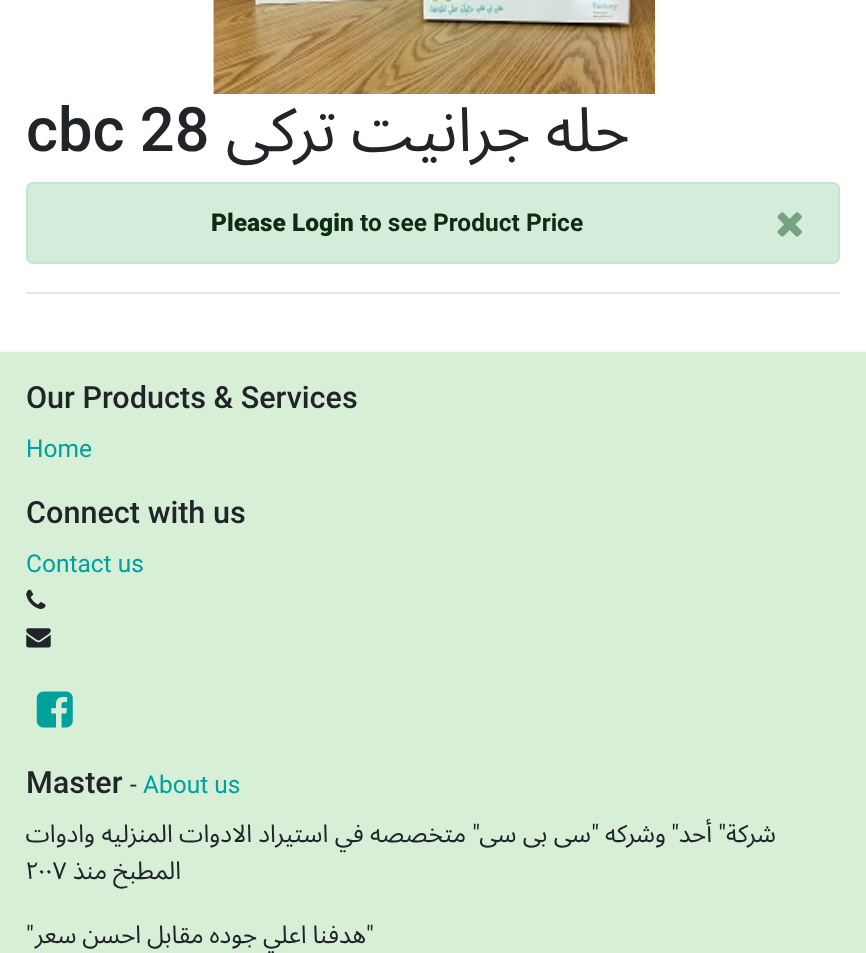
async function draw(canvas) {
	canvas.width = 866;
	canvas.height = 953;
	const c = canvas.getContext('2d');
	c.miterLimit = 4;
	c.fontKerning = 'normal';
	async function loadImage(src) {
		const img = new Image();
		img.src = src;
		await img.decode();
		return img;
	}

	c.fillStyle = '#fff';
	c.fillRect(0, 0, 866, 953);
	c.drawImage(await loadImage('img1.png'), 213, 0, 442, 94);
	c.wordSpacing = '-1px';
	c.direction = 'rtl';
	c.font = '61.25px Noto Sans Arabic';
	c.fillStyle = '#212529';
	c.fillText('حله جرانيت تركى', 630, 151);
	c.wordSpacing = '0px';
	c.direction = 'ltr';
	c.font = '500 61.25px Roboto';
	c.fillText('cbc 28', 26, 151);
	c.fillStyle = '#d4edda';
	c.beginPath();
	c.roundRect(27, 183, 812, 80, 6);
	c.fill();
	c.strokeStyle = '#c3e6cb';
	c.lineWidth = 2;
	c.stroke();
	c.drawImage(await loadImage('img2.png'), 777, 212, 25, 25);
	c.font = 'bold 24.5px Roboto';
	c.fillStyle = '#0b2e13';
	c.fillText('to see Product Price', 360, 231);
	c.font = '900 24.5px Roboto';
	c.fillText('Please Login', 211, 231);
	for (const [x, y, w, h, color] of [
		[26, 292, 814, 2, '#e6e6e6'],
		[0, 350, 866, 2, '#f9f9f9'],
		[0, 352, 866, 601, '#d6efd6'],
	]) {
		c.fillStyle = color;
		c.fillRect(x, y, w, h);
	}
	c.font = '500 30.6px Roboto';
	c.fillStyle = '#212529';
	c.fillText('Our Products & Services', 26, 408);
	c.font = '24.5px Roboto';
	c.fillStyle = '#00a09d';
	c.fillText('Home', 26, 457);
	c.font = '500 30.6px Roboto';
	c.fillStyle = '#212529';
	c.fillText('Connect with us', 26, 523);
	c.font = '24.5px Roboto';
	c.fillStyle = '#00a09d';
	c.fillText('Contact us', 26, 572);
	c.drawImage(await loadImage('img3.png'), 26, 589, 20, 20);
	c.drawImage(await loadImage('img4.png'), 26, 628, 25, 20);
	c.drawImage(await loadImage('img5.png'), 36, 691, 37, 37);
	c.fillText('About us', 143, 793);
	c.fillStyle = '#212529';
	c.fillText('-', 130, 793);
	c.font = '500 30.6px Roboto';
	c.fillText('Master', 26, 793);
	c.direction = 'rtl';
	c.font = '24.5px Noto Sans Arabic';
	c.fillText('شركة', 776, 842);
	c.font = '24.5px Roboto';
	c.fillText('"', 726, 842);
	c.font = '24.5px Noto Sans Arabic';
	c.fillText('أحد', 712, 842);
	c.font = '24.5px Roboto';
	c.fillText('"', 679, 842);
	c.font = '24.5px Noto Sans Arabic';
	c.fillText('وشركه', 666, 842);
	c.font = '24.5px Roboto';
	c.fillText('"', 599, 842);
	c.font = '24.5px Noto Sans Arabic';
	c.fillText('سى بى سى', 591, 842);
	c.font = '24.5px Roboto';
	c.fillText('"', 480, 842);
	c.font = '24.5px Noto Sans Arabic';
	c.fillText('متخصصه في استيراد الادوات المنزليه وادوات', 466, 842);
	c.wordSpacing = '-0.5px';
	c.fillText('المطبخ منذ', 181, 879);
	c.wordSpacing = '0px';
	c.direction = 'ltr';
	c.fillText('٢٠٠٧', 26, 879);
	c.font = '24.5px Roboto';
	c.fillText('"', 366, 943);
	c.wordSpacing = '-0.5px';
	c.direction = 'rtl';
	c.font = '24.5px Noto Sans Arabic';
	c.fillText('هدفنا اعلي جوده مقابل احسن سعر', 366, 943);
	c.wordSpacing = '0px';
	c.direction = 'ltr';
	c.font = '24.5px Roboto';
	c.fillText('"', 26, 943);
}

draw(document.querySelector('canvas'));
